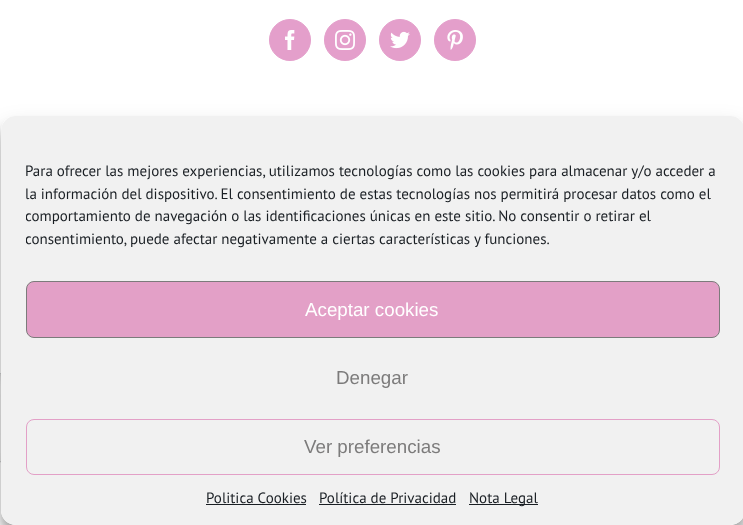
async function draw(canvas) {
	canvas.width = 743;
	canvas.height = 525;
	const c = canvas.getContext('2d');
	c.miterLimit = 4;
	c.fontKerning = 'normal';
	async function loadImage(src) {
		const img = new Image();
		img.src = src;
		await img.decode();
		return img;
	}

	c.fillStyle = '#fff';
	c.fillRect(0, 0, 743, 525);
	c.fillStyle = '#e49fcb';
	c.beginPath();
	c.arc(290, 40, 20.5, 0, 2 * Math.PI);
	c.fill();
	c.strokeStyle = '#e49fcb';
	c.stroke();
	c.drawImage(await loadImage('img1.png'), 285, 30, 10, 20);
	c.beginPath();
	c.arc(345, 40, 20.5, 0, 2 * Math.PI);
	c.fill();
	c.stroke();
	c.drawImage(await loadImage('img2.png'), 335, 30, 20, 20);
	c.beginPath();
	c.arc(400, 40, 20.5, 0, 2 * Math.PI);
	c.fill();
	c.stroke();
	c.drawImage(await loadImage('img3.png'), 390, 31, 20, 18);
	c.beginPath();
	c.arc(455, 40, 20.5, 0, 2 * Math.PI);
	c.fill();
	c.stroke();
	c.drawImage(await loadImage('img4.png'), 447, 30, 16, 20);
	c.fillStyle = '#f6f6f6';
	c.fillRect(0, 374, 1, 89);
	c.drawImage(await loadImage('img5.png'), 0, 374, 1, 89);
	c.fillStyle = '#d2d3d4';
	c.fillRect(0, 373, 1, 1);
	c.fillRect(0, 461, 1, 1);
	c.save();
	c.beginPath();
	c.moveTo(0, 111);
	c.lineTo(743, 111);
	c.lineTo(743, 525);
	c.lineTo(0, 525);
	c.closePath();
	c.moveTo(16, 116);
	c.lineTo(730, 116);
	c.bezierCurveTo(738.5, 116, 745, 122.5, 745, 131);
	c.lineTo(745, 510);
	c.bezierCurveTo(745, 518.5, 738.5, 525, 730, 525);
	c.lineTo(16, 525);
	c.bezierCurveTo(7.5, 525, 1, 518.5, 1, 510);
	c.lineTo(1, 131);
	c.bezierCurveTo(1, 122.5, 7.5, 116, 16, 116);
	c.closePath();
	c.clip('evenodd');
	c.fillStyle = '#0000003b';
	c.filter = 'blur(4px)';
	c.beginPath();
	c.roundRect(1, 124, 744, 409, 15);
	c.fill();
	c.filter = 'none';
	c.restore();
	c.save();
	c.beginPath();
	c.moveTo(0, 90);
	c.lineTo(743, 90);
	c.lineTo(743, 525);
	c.lineTo(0, 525);
	c.closePath();
	c.moveTo(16, 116);
	c.lineTo(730, 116);
	c.bezierCurveTo(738.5, 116, 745, 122.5, 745, 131);
	c.lineTo(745, 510);
	c.bezierCurveTo(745, 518.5, 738.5, 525, 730, 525);
	c.lineTo(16, 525);
	c.bezierCurveTo(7.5, 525, 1, 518.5, 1, 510);
	c.lineTo(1, 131);
	c.bezierCurveTo(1, 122.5, 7.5, 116, 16, 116);
	c.closePath();
	c.clip('evenodd');
	c.fillStyle = '#00000030';
	c.filter = 'blur(12.5px)';
	c.beginPath();
	c.roundRect(1, 129, 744, 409, 15);
	c.fill();
	c.filter = 'none';
	c.restore();
	c.fillStyle = '#f1f1f1';
	c.beginPath();
	c.roundRect(1, 116, 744, 409, 15);
	c.fill();
	c.font = '15px PT Sans';
	c.fillStyle = '#191e23';
	c.fillText('Para ofrecer las mejores experiencias, utilizamos tecnologías como las cookies para almacenar y/o acceder a', 25, 176);
	c.fillText('la información del dispositivo. El consentimiento de estas tecnologías nos permitirá procesar datos como el', 25, 199);
	c.save();
	c.beginPath();
	c.rect(26, 160, 694, 96);
	c.clip();
	c.fillText('comportamiento de navegación o las identificaciones únicas en este sitio. No consentir o retirar el', 25, 221);
	c.fillText('consentimiento, puede afectar negativamente a ciertas características y funciones.', 25, 244);
	c.restore();
	c.fillStyle = '#e3a0c7';
	c.beginPath();
	c.roundRect(26.5, 281.5, 693, 56, 7.5);
	c.fill();
	c.strokeStyle = '#7c7b7b';
	c.stroke();
	c.font = '18.75px Liberation Sans';
	c.fillStyle = '#fff';
	c.fillText('Aceptar cookies', 305, 316);
	c.fillStyle = '#7c7b7b';
	c.fillText('Denegar', 336, 384);
	c.beginPath();
	c.roundRect(26.5, 419.5, 693, 55, 7.5);
	c.strokeStyle = '#e3a0c7';
	c.stroke();
	c.fillText('Ver preferencias', 304, 453);
	c.font = '15px PT Sans';
	c.fillStyle = '#191e23';
	c.fillText('Politica Cookies', 206, 503);
	c.fillRect(206, 504, 100, 1);
	c.fillText('Política de Privacidad', 319, 503);
	c.fillRect(319, 504, 137, 1);
	c.fillRect(469, 504, 69, 1);
	c.fillText('Nota Legal', 469, 503);
}

draw(document.querySelector('canvas'));
